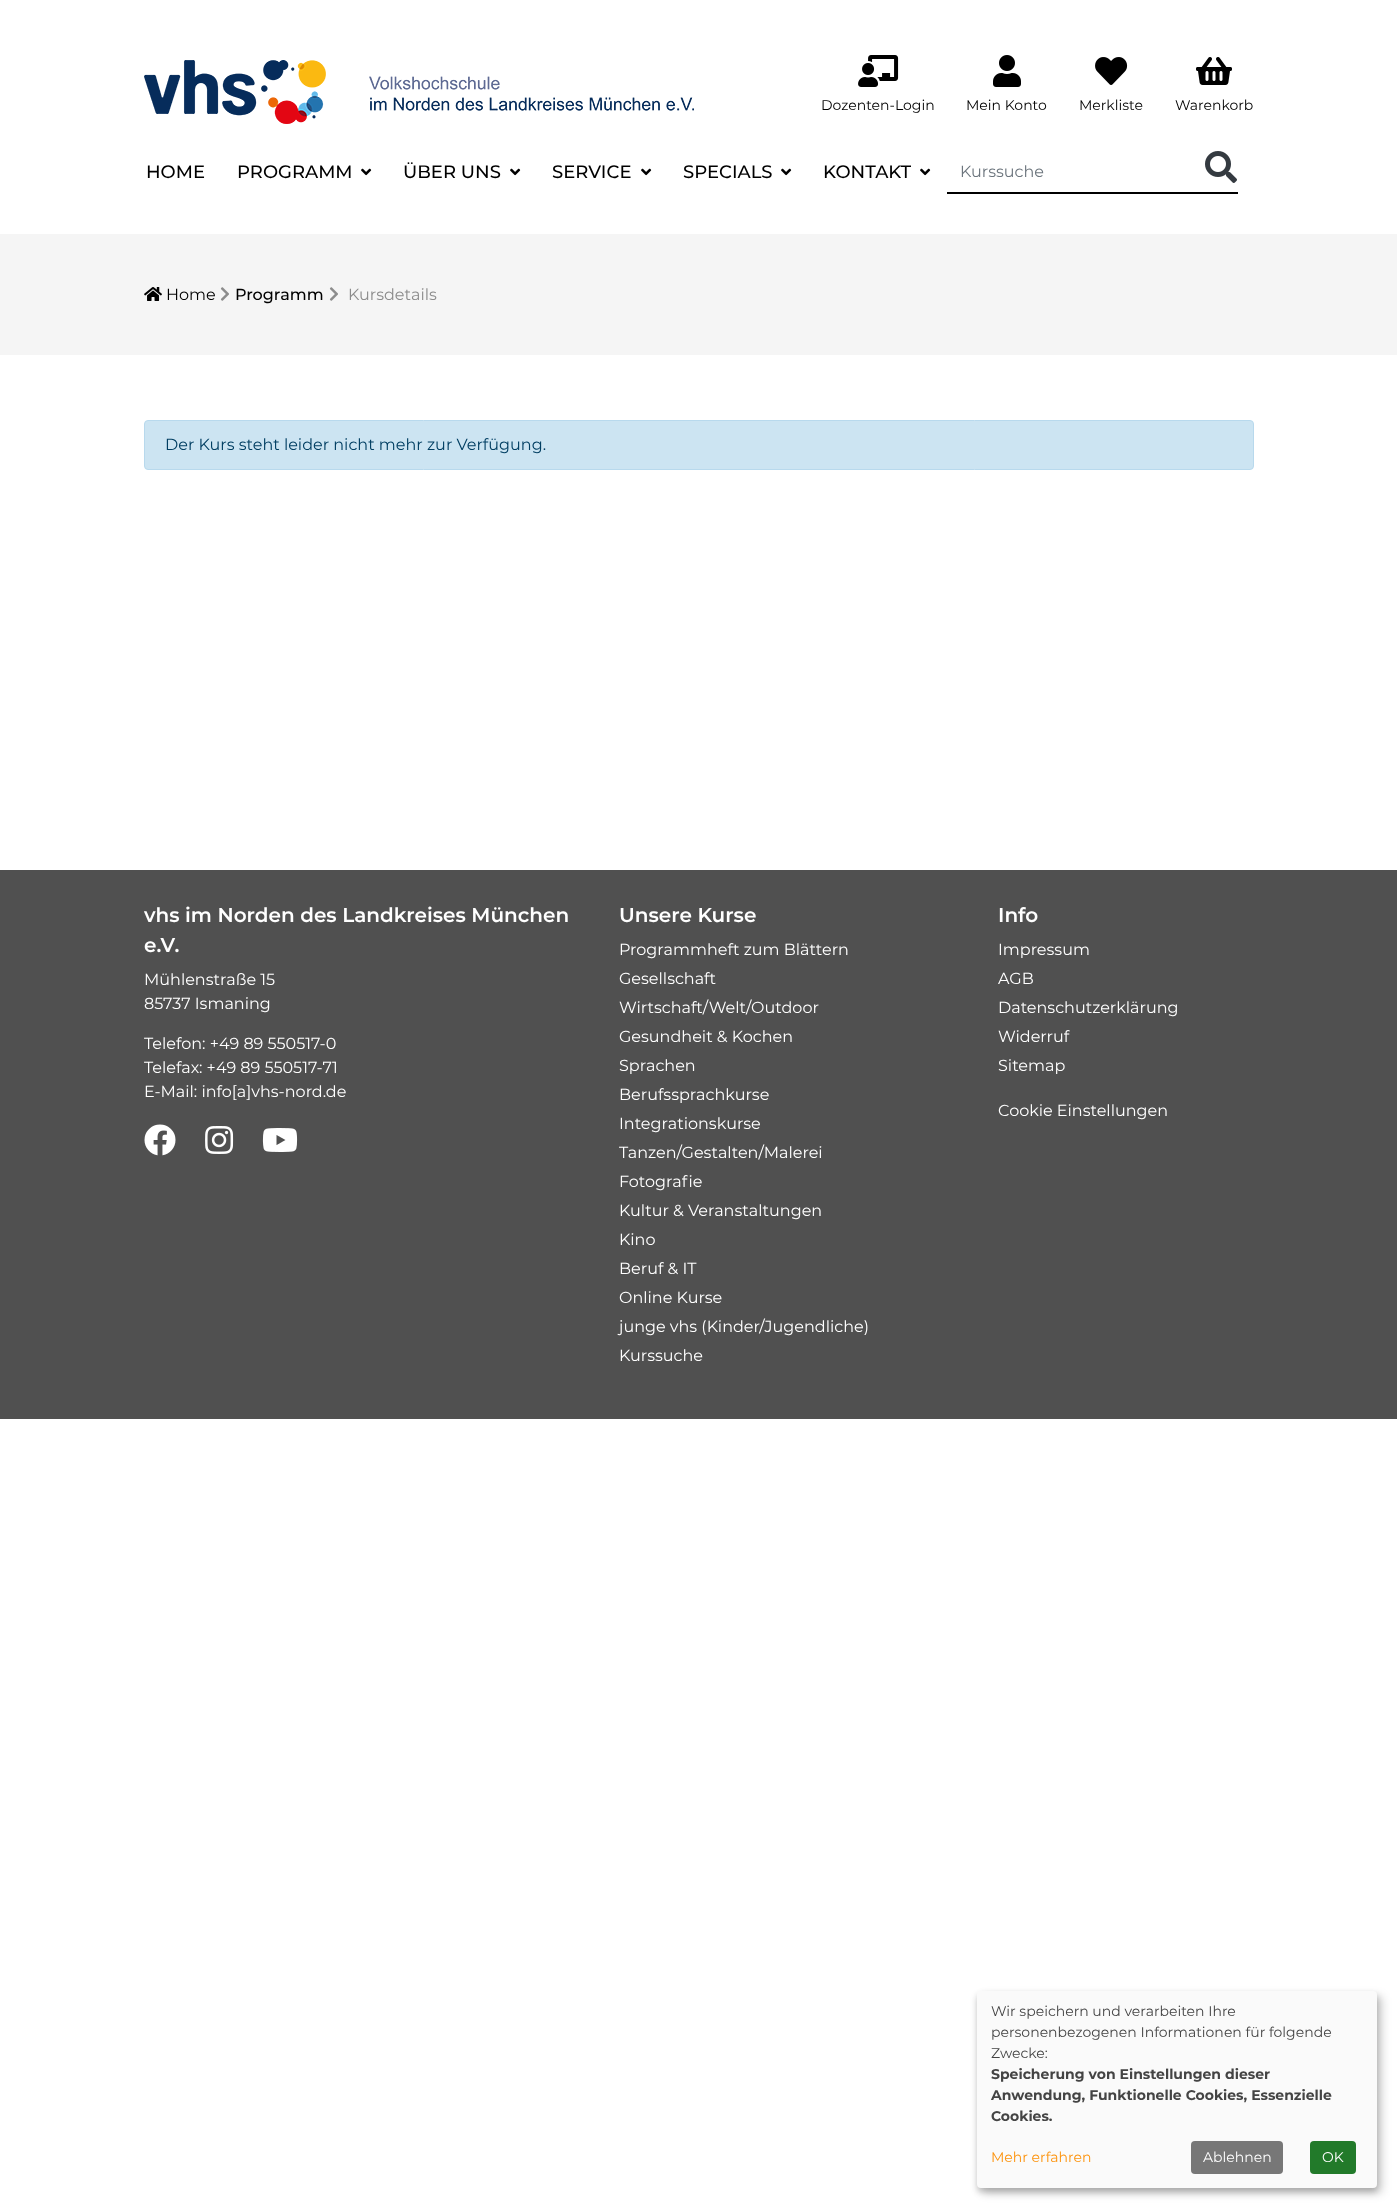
async function draw(canvas) {
	canvas.width = 1397;
	canvas.height = 2208;
	const c = canvas.getContext('2d');
	c.miterLimit = 4;
	c.fontKerning = 'normal';
	async function loadImage(src) {
		const img = new Image();
		img.src = src;
		await img.decode();
		return img;
	}

	c.fillStyle = '#fff';
	c.fillRect(0, 0, 1397, 2208);
	c.drawImage(await loadImage('img1.png'), 144, 60, 550, 64);
	c.drawImage(await loadImage('img2.png'), 858, 55, 41, 32);
	c.font = '14px Montserrat';
	c.fillStyle = '#000';
	c.fillText('Dozenten-Login', 821, 110);
	c.drawImage(await loadImage('img3.png'), 993, 55, 28, 32);
	c.fillText('Mein Konto', 966, 110);
	c.drawImage(await loadImage('img4.png'), 1095, 57, 33, 28);
	c.fillText('Merkliste', 1079, 110);
	c.drawImage(await loadImage('img5.png'), 1196, 57, 36, 28);
	c.fillText('Warenkorb', 1175, 110);
	c.font = '500 18px Montserrat';
	c.fillText('HOME', 146, 178);
	c.fillText('PROGRAMM', 237, 178);
	c.drawImage(await loadImage('img6.png'), 361, 168, 11, 8);
	c.fillText('ÜBER UNS', 403, 178);
	c.drawImage(await loadImage('img6.png'), 510, 168, 11, 8);
	c.fillText('SERVICE', 552, 178);
	c.drawImage(await loadImage('img6.png'), 641, 168, 11, 8);
	c.fillText('SPECIALS', 683, 178);
	c.drawImage(await loadImage('img6.png'), 781, 168, 11, 8);
	c.fillText('KONTAKT', 823, 178);
	c.drawImage(await loadImage('img6.png'), 920, 168, 11, 8);
	c.fillRect(947, 192, 291, 2);
	c.font = '16px Montserrat';
	c.fillStyle = '#6c757d';
	c.fillText('Kurssuche', 960, 177);
	c.drawImage(await loadImage('img7.png'), 1205, 151, 32, 32);
	c.fillStyle = '#f5f5f5';
	c.fillRect(0, 234, 1397, 121);
	c.drawImage(await loadImage('img8.png'), 144, 287, 18, 14);
	c.fillStyle = '#000';
	c.fillText('Home', 166, 300);
	c.drawImage(await loadImage('img9.png'), 220, 287, 9, 14);
	c.font = '500 16px Montserrat';
	c.fillText('Programm', 235, 300);
	c.drawImage(await loadImage('img9.png'), 329, 287, 9, 14);
	c.font = '16px Montserrat';
	c.fillStyle = '#8c8c8c';
	c.fillText('Kursdetails', 348, 300);
	c.fillStyle = '#cce4f2';
	c.beginPath();
	c.roundRect(144.5, 420.5, 1109, 49, 3.5);
	c.fill();
	c.strokeStyle = '#b8d9ed';
	c.stroke();
	c.fillStyle = '#013e62';
	c.fillText('Der Kurs steht leider nicht mehr zur Verfügung.', 165, 450);
	c.fillStyle = '#505050';
	c.fillRect(0, 870, 1397, 549);
	c.font = '600 20px Montserrat';
	c.fillStyle = '#fff';
	c.fillText('vhs im Norden des Landkreises München', 144, 922);
	c.fillText('e.V.', 144, 952);
	c.font = '16px Montserrat';
	for (const [text, x, y] of [
		['Mühlenstraße 15', 144, 985],
		['85737 Ismaning', 144, 1009],
		['Telefon: +49 89 550517-0', 144, 1049],
		['Telefax: +49 89 550517-71', 144, 1073],
		['E-Mail: info[a]vhs-nord.de', 144, 1097],
	]) {
		c.fillText(text, x, y);
	}
	c.drawImage(await loadImage('img10.png'), 144, 1124, 32, 32);
	c.drawImage(await loadImage('img11.png'), 205, 1126, 29, 28);
	c.drawImage(await loadImage('img12.png'), 262, 1128, 36, 24);
	c.font = '600 20px Montserrat';
	c.fillText('Unsere Kurse', 619, 922);
	c.font = '16px Montserrat';
	for (const [text, x, y] of [
		['Programmheft zum Blättern', 619, 955],
		['Gesellschaft', 619, 984],
		['Wirtschaft/Welt/Outdoor', 619, 1013],
		['Gesundheit & Kochen', 619, 1042],
		['Sprachen', 619, 1071],
		['Berufssprachkurse', 619, 1100],
		['Integrationskurse', 619, 1129],
		['Tanzen/Gestalten/Malerei', 619, 1158],
		['Fotografie', 619, 1187],
		['Kultur & Veranstaltungen', 619, 1216],
		['Kino', 619, 1245],
		['Beruf & IT', 619, 1274],
		['Online Kurse', 619, 1303],
		['junge vhs (Kinder/Jugendliche)', 619, 1332],
		['Kurssuche', 619, 1361],
	]) {
		c.fillText(text, x, y);
	}
	c.font = '600 20px Montserrat';
	c.fillText('Info', 998, 922);
	c.font = '16px Montserrat';
	for (const [text, x, y] of [
		['Impressum', 998, 955],
		['AGB', 998, 984],
		['Datenschutzerklärung', 998, 1013],
		['Widerruf', 998, 1042],
		['Sitemap', 998, 1071],
		['Cookie Einstellungen', 998, 1116],
	]) {
		c.fillText(text, x, y);
	}
	c.fillStyle = '#00000030';
	c.filter = 'blur(5px)';
	c.beginPath();
	c.roundRect(982, 1996, 400, 197, 4);
	c.fill();
	c.filter = 'none';
	c.fillStyle = '#00000033';
	c.filter = 'blur(3px)';
	c.beginPath();
	c.roundRect(977, 1995, 400, 197, 4);
	c.fill();
	c.filter = 'none';
	c.fillStyle = '#fafafa';
	c.beginPath();
	c.roundRect(977, 1991, 400, 197, 4);
	c.fill();
	c.font = '14px Montserrat';
	c.fillStyle = '#444';
	for (const [text, x, y] of [
		['Wir speichern und verarbeiten Ihre', 991, 2016],
		['personenbezogenen Informationen für folgende', 991, 2037],
		['Zwecke:', 991, 2058],
	]) {
		c.fillText(text, x, y);
	}
	c.font = 'bold 14px Montserrat';
	for (const [text, x, y] of [
		['Speicherung von Einstellungen dieser', 991, 2079],
		['Anwendung, Funktionelle Cookies, Essenzielle', 991, 2100],
		['Cookies.', 991, 2121],
	]) {
		c.fillText(text, x, y);
	}
	c.font = '14px Montserrat';
	c.fillStyle = '#fd930c';
	c.fillText('Mehr erfahren', 991, 2162);
	c.fillStyle = '#777';
	c.beginPath();
	c.roundRect(1191, 2141, 92, 33, 4);
	c.fill();
	c.fillStyle = '#fff';
	c.fillText('Ablehnen', 1203, 2162);
	c.fillStyle = '#227a2a';
	c.beginPath();
	c.roundRect(1310, 2141, 46, 33, 4);
	c.fill();
	c.fillStyle = '#fff';
	c.fillText('OK', 1322, 2162);
}

draw(document.querySelector('canvas'));
